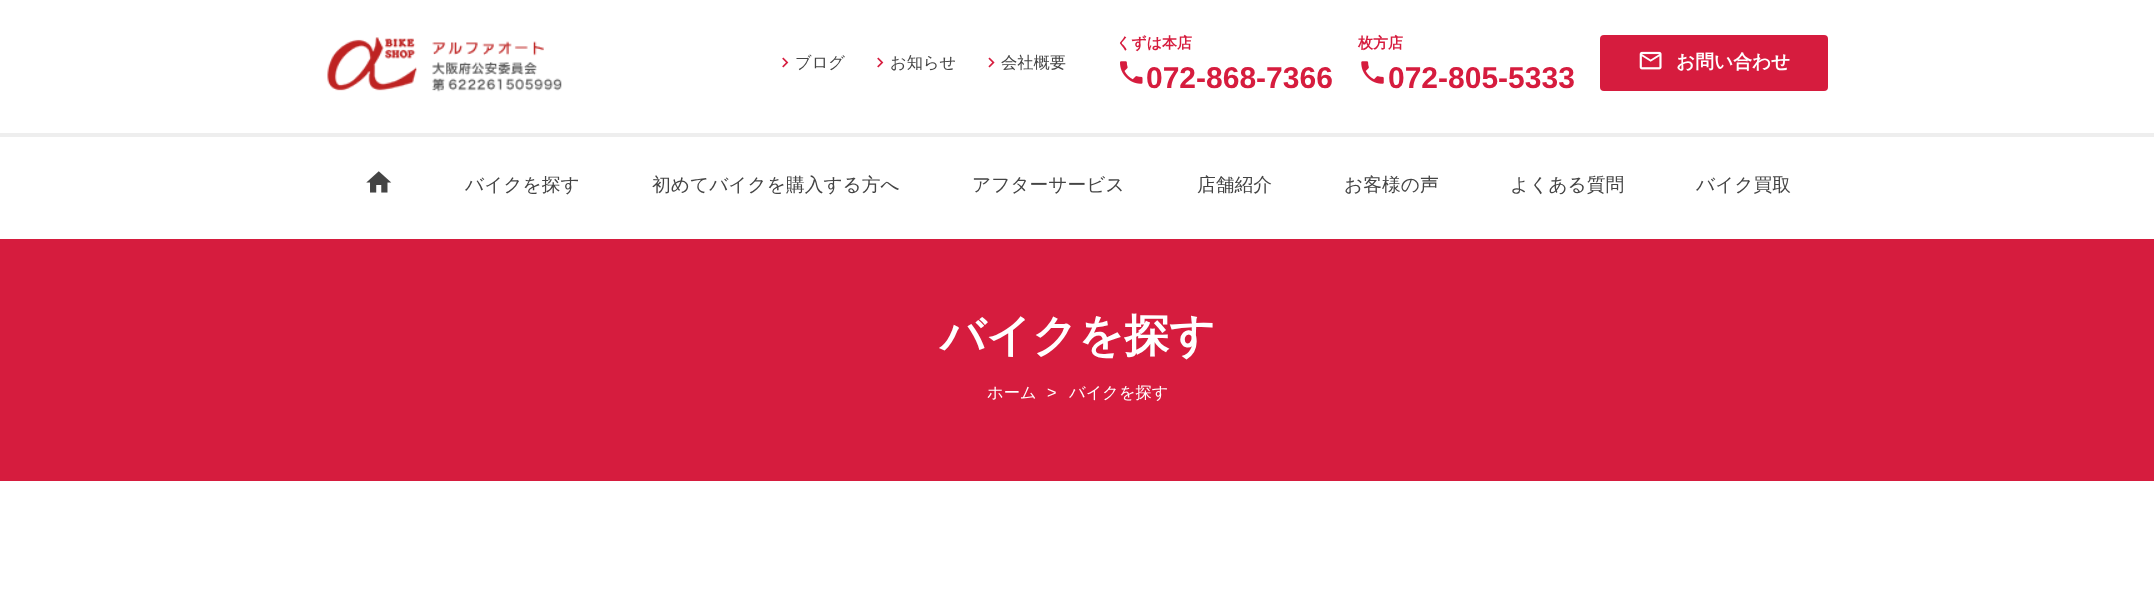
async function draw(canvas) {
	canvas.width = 2154;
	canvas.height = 590;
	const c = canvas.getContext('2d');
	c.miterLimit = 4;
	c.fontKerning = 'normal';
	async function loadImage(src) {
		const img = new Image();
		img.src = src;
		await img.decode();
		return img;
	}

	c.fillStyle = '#fff';
	c.fillRect(0, 0, 2154, 590);
	c.drawImage(await loadImage('img1.png'), 327, 37, 235, 55);
	c.drawImage(await loadImage('img2.png'), 782, 57, 7, 11);
	c.font = '500 16.25px WenQuanYi Zen Hei';
	c.fillStyle = '#444';
	c.fillText('ブログ', 795, 68);
	c.drawImage(await loadImage('img2.png'), 877, 57, 7, 11);
	c.fillText('お知らせ', 890, 68);
	c.drawImage(await loadImage('img3.png'), 988, 57, 7, 11);
	c.fillText('会社概要', 1001, 68);
	c.font = 'bold 15px WenQuanYi Zen Hei';
	c.fillStyle = '#d61c3e';
	c.fillText('くずは本店', 1116, 48);
	c.drawImage(await loadImage('img4.png'), 1120, 61, 23, 23);
	c.font = 'bold 30px Liberation Sans';
	c.fillText('072-868-7366', 1146, 88);
	c.font = 'bold 15px WenQuanYi Zen Hei';
	c.fillText('枚方店', 1358, 48);
	c.drawImage(await loadImage('img5.png'), 1361, 61, 23, 23);
	c.font = 'bold 30px Liberation Sans';
	c.fillText('072-805-5333', 1388, 88);
	c.beginPath();
	c.roundRect(1600, 35, 228, 56, 4);
	c.fill();
	c.drawImage(await loadImage('img6.png'), 1639, 51, 23, 19);
	c.font = 'bold 18.75px WenQuanYi Zen Hei';
	c.fillStyle = '#fff';
	c.fillText('お問い合わせ', 1676, 68);
	c.fillStyle = '#eee';
	c.fillRect(0, 133, 2154, 4);
	c.drawImage(await loadImage('img7.png'), 366, 171, 26, 22);
	c.font = '500 18.75px WenQuanYi Zen Hei';
	c.fillStyle = '#444';
	for (const [text, x, y] of [
		['バイクを探す', 465, 191],
		['初めてバイクを購入する方へ', 652, 191],
		['アフターサービス', 972, 191],
		['店舗紹介', 1197, 191],
		['お客様の声', 1344, 191],
		['よくある質問', 1510, 191],
		['バイク買取', 1696, 191],
	]) {
		c.fillText(text, x, y);
	}
	c.fillStyle = '#d61c3e';
	c.fillRect(0, 239, 2154, 242);
	c.font = 'bold 45px WenQuanYi Zen Hei';
	c.fillStyle = '#fff';
	c.fillText('バイクを探す', 940, 351);
	c.font = '500 16.25px WenQuanYi Zen Hei';
	c.fillText('ホーム', 987, 398);
	c.font = '16.25px Liberation Sans';
	c.fillText('>', 1047, 398);
	c.font = '500 16.25px WenQuanYi Zen Hei';
	c.fillText('バイクを探す', 1069, 398);
}

draw(document.querySelector('canvas'));
